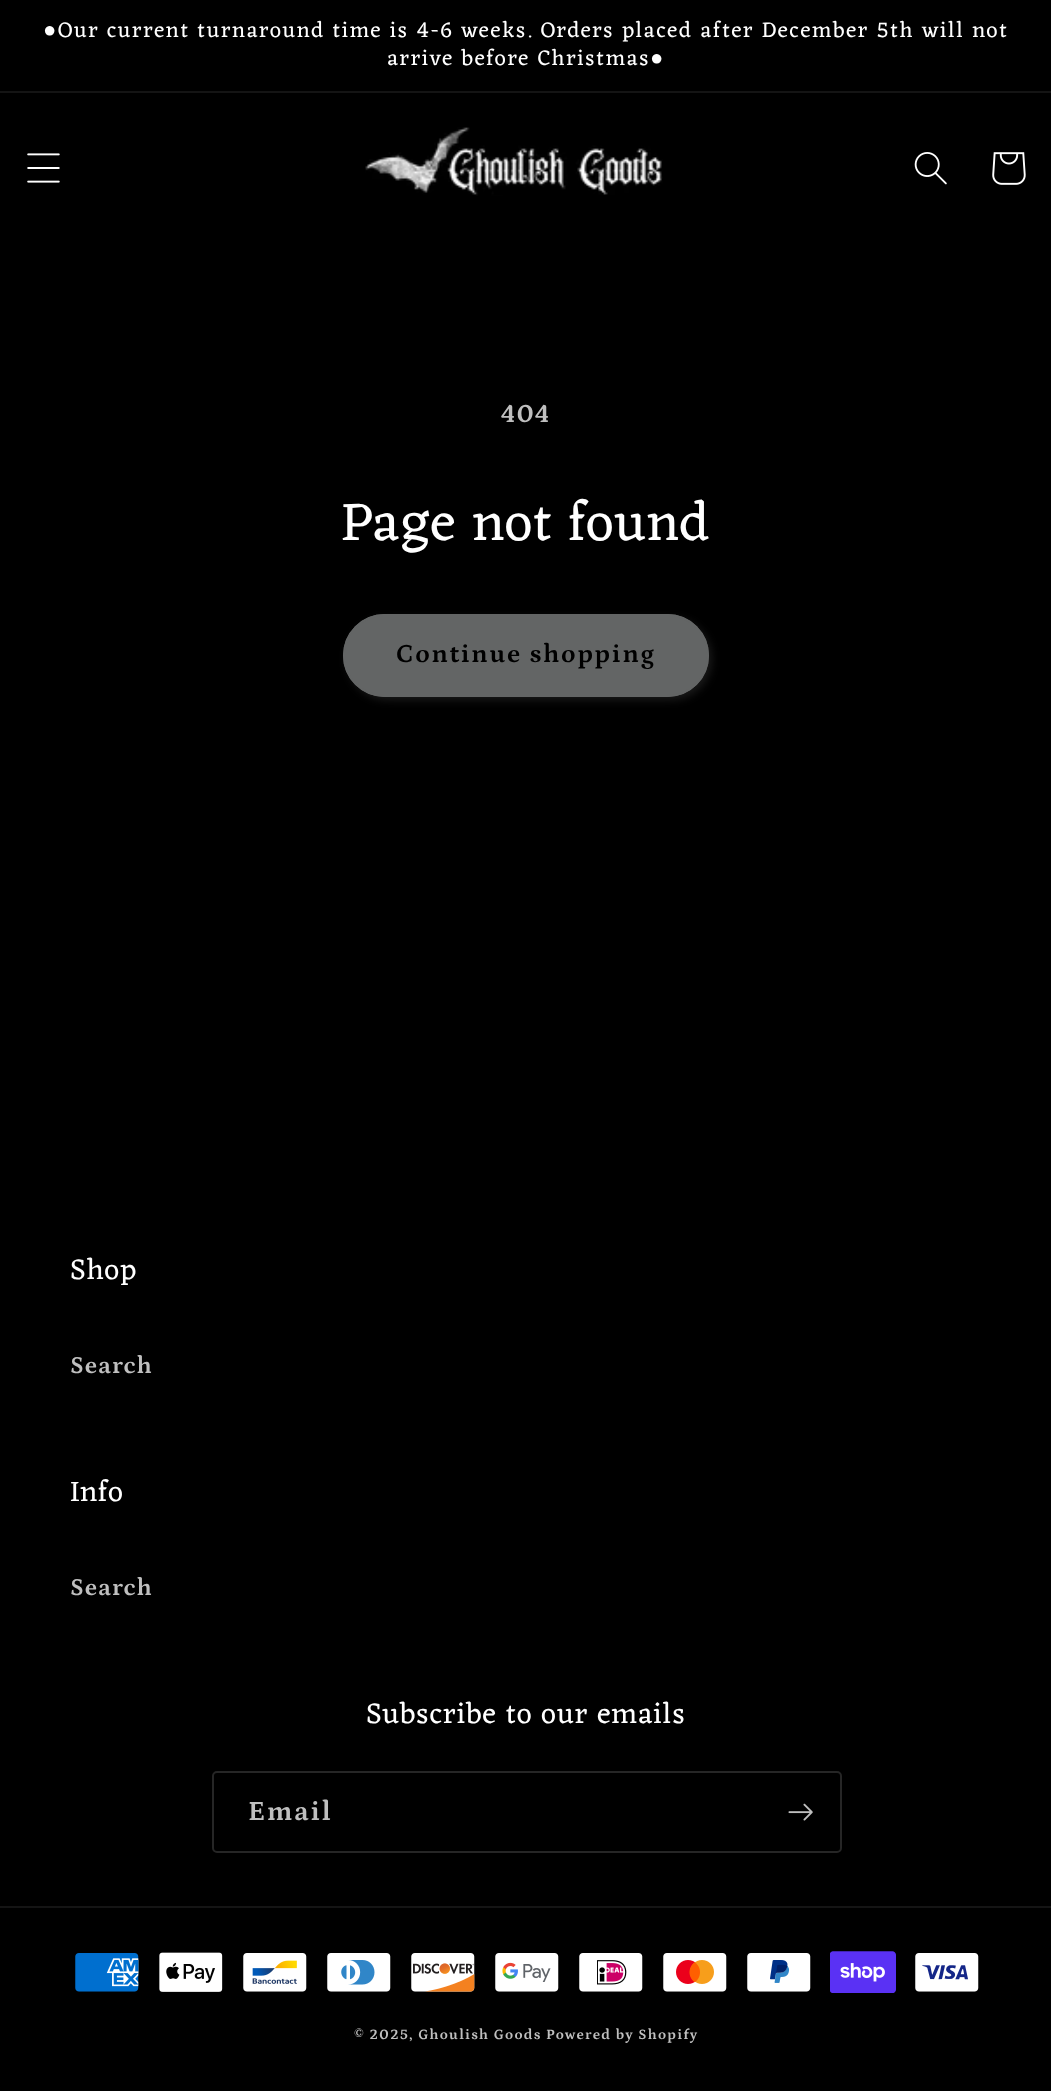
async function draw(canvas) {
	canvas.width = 1051;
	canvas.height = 2091;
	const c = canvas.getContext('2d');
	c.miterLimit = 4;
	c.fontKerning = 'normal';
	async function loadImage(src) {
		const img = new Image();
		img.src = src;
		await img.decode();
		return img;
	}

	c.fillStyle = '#000';
	c.fillRect(0, 0, 1051, 2091);
	c.fillStyle = '#141414';
	c.fillRect(0, 91, 1051, 2);
	c.letterSpacing = '1.75px';
	c.font = '22.05px Liberation Serif';
	c.fillStyle = '#fff';
	c.fillText('●', 43, 37);
	c.font = '22.05px Eczar';
	c.fillText('Our current turnaround time is 4-6 weeks. Orders placed after December 5th will not', 58, 37);
	c.fillText('arrive before Christmas', 387, 65);
	c.font = '22.05px Liberation Serif';
	c.fillText('●', 650, 65);
	c.drawImage(await loadImage('img1.png'), 27, 153, 33, 30);
	c.drawImage(await loadImage('img2.png'), 365, 127, 298, 69);
	c.drawImage(await loadImage('img3.png'), 914, 152, 33, 33);
	c.drawImage(await loadImage('img4.png'), 992, 152, 34, 33);
	c.letterSpacing = '1px';
	c.font = 'bold 26.25px Petrona';
	c.fillStyle = '#bfbfbf';
	c.fillText('404', 501, 422);
	c.letterSpacing = '1.1px';
	c.font = '55px Eczar';
	c.fillStyle = '#fff';
	c.fillText('Page not found', 341, 540);
	c.fillStyle = '#ffffff1a';
	c.filter = 'blur(4.5px)';
	c.beginPath();
	c.roundRect(347, 618, 365, 82, 41);
	c.fill();
	c.filter = 'none';
	c.fillStyle = '#636565';
	c.beginPath();
	c.roundRect(343, 614, 366, 83, 41.5);
	c.fill();
	c.beginPath();
	c.roundRect(344, 615, 364, 81, 40.5);
	c.strokeStyle = '#636565';
	c.lineWidth = 2;
	c.stroke();
	c.letterSpacing = '1.75px';
	c.font = 'bold 26.25px Petrona';
	c.fillStyle = '#000';
	c.fillText('Continue shopping', 396, 662);
	c.letterSpacing = '1.1px';
	c.font = '29.4px Eczar';
	c.fillStyle = '#fff';
	c.fillText('Shop', 70, 1279);
	c.letterSpacing = '1px';
	c.font = 'bold 24.5px Petrona';
	c.fillStyle = '#bfbfbf';
	c.fillText('Search', 70, 1373);
	c.letterSpacing = '1.1px';
	c.font = '29.4px Eczar';
	c.fillStyle = '#fff';
	c.fillText('Info', 70, 1501);
	c.letterSpacing = '1px';
	c.font = 'bold 24.5px Petrona';
	c.fillStyle = '#bfbfbf';
	c.fillText('Search', 70, 1595);
	c.letterSpacing = '1.1px';
	c.font = '29.4px Eczar';
	c.fillStyle = '#fff';
	c.fillText('Subscribe to our emails', 366, 1723);
	c.beginPath();
	c.roundRect(213, 1772, 628, 80, 4);
	c.strokeStyle = '#ffffff26';
	c.stroke();
	c.letterSpacing = '1.75px';
	c.font = 'bold 28px Petrona';
	c.fillStyle = '#bfbfbf';
	c.fillText('Email', 248, 1820);
	c.drawImage(await loadImage('img5.png'), 788, 1803, 25, 18);
	c.fillStyle = '#141414';
	c.fillRect(0, 1906, 1051, 2);
	c.drawImage(await loadImage('img6.png'), 75, 1953, 64, 39);
	c.drawImage(await loadImage('img7.png'), 159, 1952, 64, 40);
	c.drawImage(await loadImage('img8.png'), 243, 1953, 64, 39);
	c.drawImage(await loadImage('img9.png'), 327, 1953, 64, 39);
	c.drawImage(await loadImage('img10.png'), 411, 1953, 64, 39);
	c.drawImage(await loadImage('img11.png'), 495, 1953, 64, 39);
	c.drawImage(await loadImage('img12.png'), 579, 1953, 64, 39);
	c.drawImage(await loadImage('img13.png'), 663, 1953, 64, 39);
	c.drawImage(await loadImage('img14.png'), 747, 1953, 64, 39);
	c.drawImage(await loadImage('img15.png'), 830, 1951, 66, 42);
	c.drawImage(await loadImage('img16.png'), 915, 1953, 64, 39);
	c.letterSpacing = '1.25px';
	c.font = 'bold 14.6px Petrona';
	c.fillStyle = '#bfbfbf';
	c.fillText('© 2025, Ghoulish Goods', 354, 2039);
	c.fillText('Powered by Shopify', 546, 2039);
}

draw(document.querySelector('canvas'));
